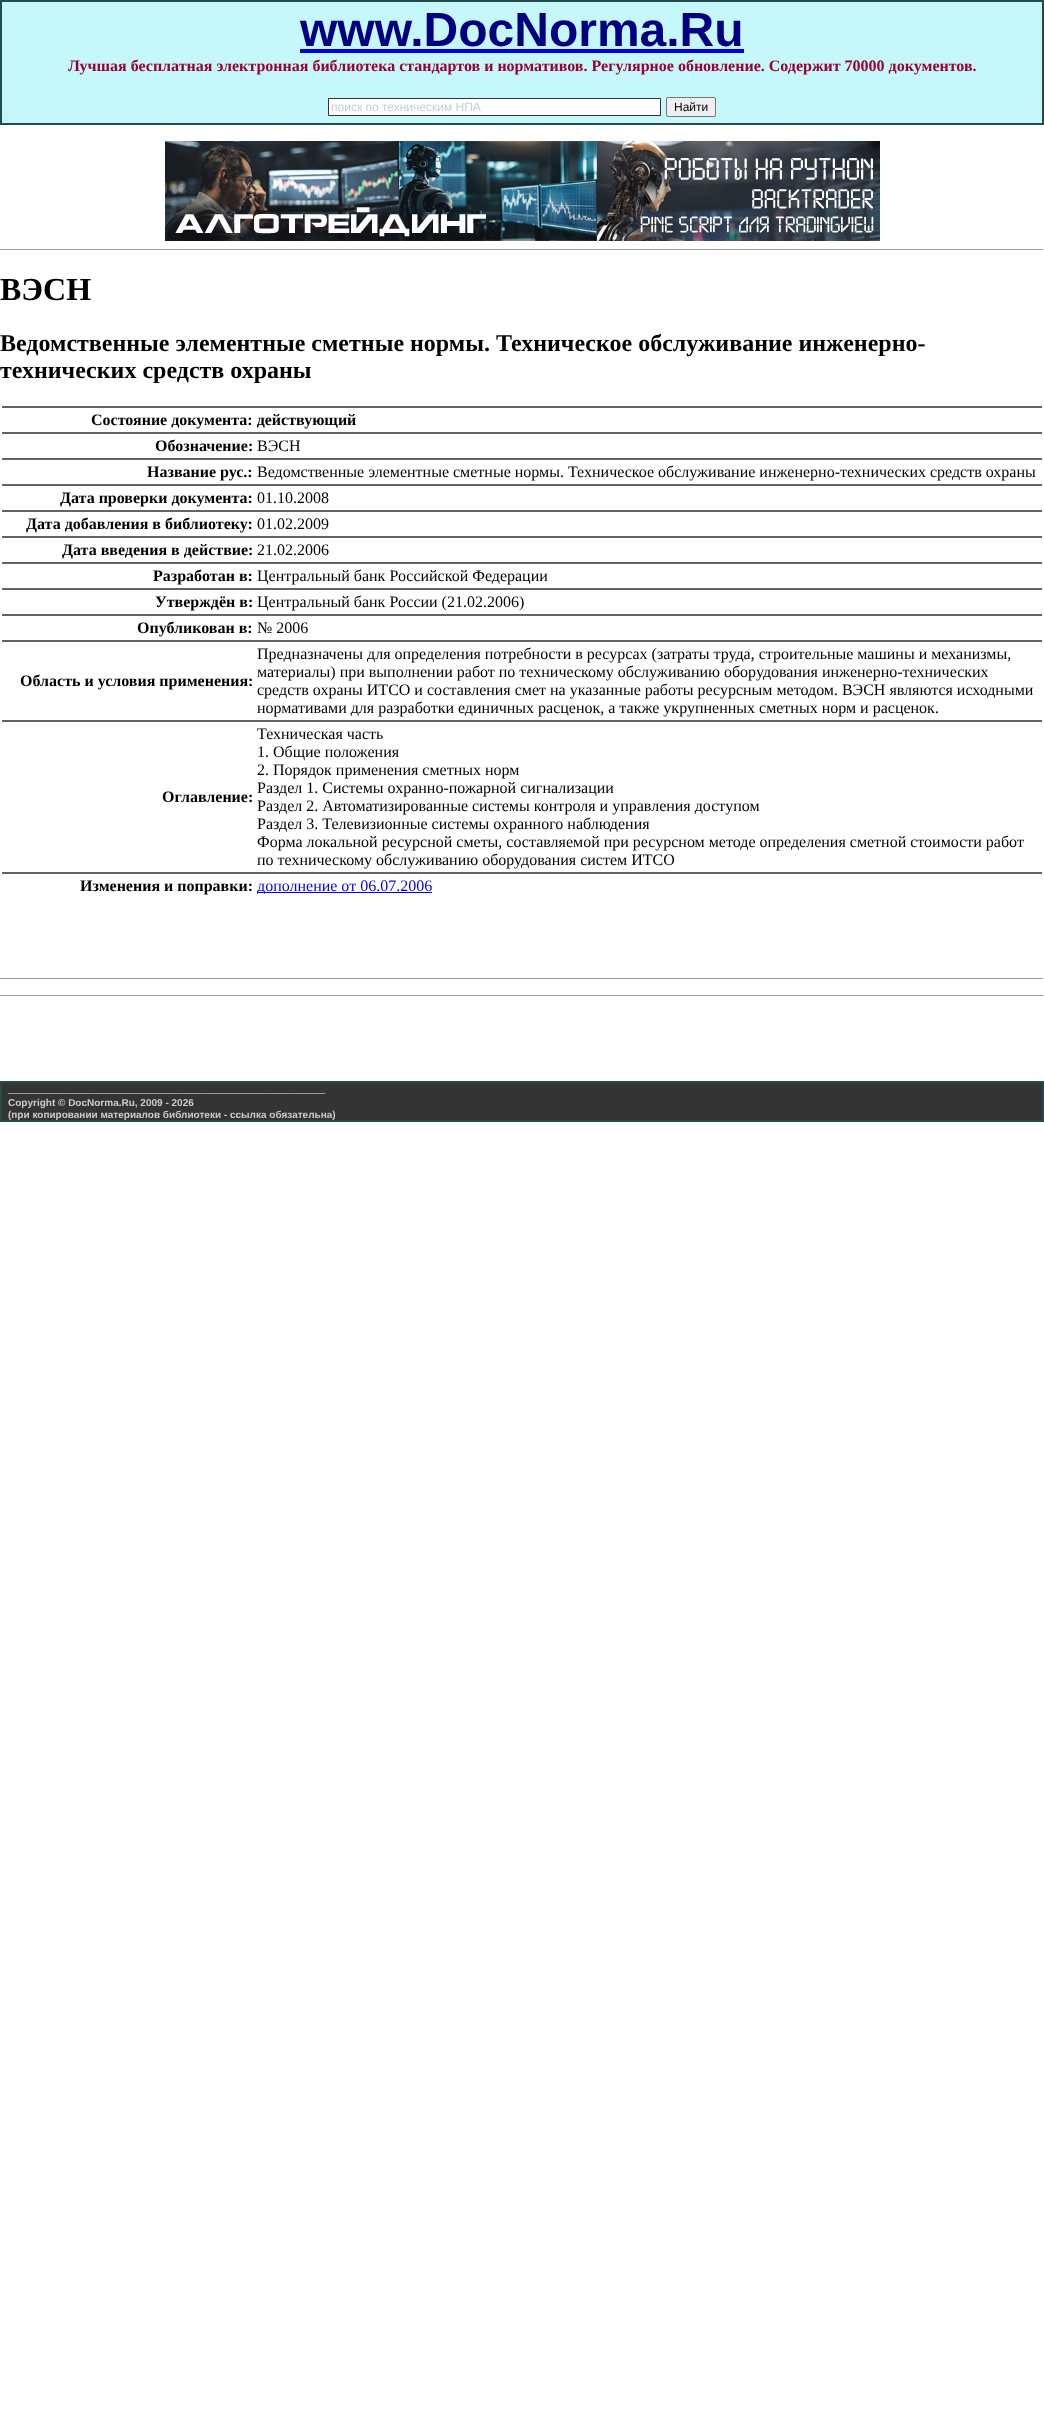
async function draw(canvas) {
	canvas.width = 1044;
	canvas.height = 2424;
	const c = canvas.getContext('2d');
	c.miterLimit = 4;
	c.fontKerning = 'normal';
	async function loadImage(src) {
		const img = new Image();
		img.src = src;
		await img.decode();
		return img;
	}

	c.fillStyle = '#fff';
	c.fillRect(0, 0, 1044, 2424);
	c.fillStyle = '#c6f7fb';
	c.fillRect(2, 2, 1040, 121);
	c.strokeStyle = '#254b4b';
	c.strokeRect(0.5, 0.5, 1043, 124);
	c.strokeRect(1.5, 1.5, 1041, 122);
	c.font = 'bold 48px Liberation Sans';
	c.fillStyle = '#000080';
	c.fillText('www.DocNorma.Ru', 300, 46);
	c.fillStyle = '#00e';
	c.fillRect(300, 49, 444, 4);
	c.font = 'bold 16px Liberation Serif';
	c.fillStyle = '#903';
	c.fillText('Лучшая бесплатная электронная библиотека стандартов и нормативов. Регулярное обновление. Содержит 70000 документов.', 68, 71);
	c.fillStyle = '#fff';
	c.beginPath();
	c.rect(328.5, 98.5, 332, 17);
	c.fill();
	c.strokeStyle = '#333';
	c.stroke();
	c.font = '12px Liberation Sans';
	c.fillStyle = '#ccc';
	c.fillText('поиск по техническим НПА', 331, 111);
	c.fillStyle = '#efefef';
	c.beginPath();
	c.roundRect(666.5, 97.5, 49, 19, 1.5);
	c.fill();
	c.strokeStyle = '#767676';
	c.stroke();
	c.fillStyle = '#000';
	c.fillText('Найти', 674, 111);
	c.drawImage(await loadImage('img1.png'), 165, 141, 715, 100);
	c.fillStyle = '#9f9f9f';
	c.fillRect(0, 249, 1044, 1);
	c.fillStyle = '#eee';
	c.fillRect(1043, 249, 1, 1);
	c.font = 'bold 32px Liberation Serif';
	c.fillStyle = '#000';
	c.fillText('ВЭСН', 0, 300);
	c.font = 'bold 24px Liberation Serif';
	c.fillText('Ведомственные элементные сметные нормы. Техническое обслуживание инженерно-', 0, 351);
	c.fillText('технических средств охраны', 0, 378);
	c.fillStyle = '#646464';
	c.fillRect(2, 406, 1040, 2);
	c.font = 'bold 16px Liberation Serif';
	c.fillStyle = '#000';
	c.fillText('Состояние документа: действующий', 91, 425);
	c.fillStyle = '#646464';
	c.fillRect(2, 432, 1040, 2);
	c.fillStyle = '#000';
	c.fillText('Обозначение:', 155, 451);
	c.font = '16px Liberation Serif';
	c.fillText('ВЭСН', 257, 451);
	c.fillStyle = '#646464';
	c.fillRect(2, 458, 1040, 2);
	c.font = 'bold 16px Liberation Serif';
	c.fillStyle = '#000';
	c.fillText('Название рус.:', 147, 477);
	c.font = '16px Liberation Serif';
	c.fillText('Ведомственные элементные сметные нормы. Техническое обслуживание инженерно-технических средств охраны', 257, 477);
	c.fillStyle = '#646464';
	c.fillRect(2, 484, 1040, 2);
	c.font = 'bold 16px Liberation Serif';
	c.fillStyle = '#000';
	c.fillText('Дата проверки документа:', 60, 503);
	c.font = '16px Liberation Serif';
	c.fillText('01.10.2008', 257, 503);
	c.fillStyle = '#646464';
	c.fillRect(2, 510, 1040, 2);
	c.font = 'bold 16px Liberation Serif';
	c.fillStyle = '#000';
	c.fillText('Дата добавления в библиотеку:', 26, 529);
	c.font = '16px Liberation Serif';
	c.fillText('01.02.2009', 257, 529);
	c.fillStyle = '#646464';
	c.fillRect(2, 536, 1040, 2);
	c.font = 'bold 16px Liberation Serif';
	c.fillStyle = '#000';
	c.fillText('Дата введения в действие:', 62, 555);
	c.font = '16px Liberation Serif';
	c.fillText('21.02.2006', 257, 555);
	c.fillStyle = '#646464';
	c.fillRect(2, 562, 1040, 2);
	c.font = 'bold 16px Liberation Serif';
	c.fillStyle = '#000';
	c.fillText('Разработан в:', 153, 581);
	c.font = '16px Liberation Serif';
	c.fillText('Центральный банк Российской Федерации', 257, 581);
	c.fillStyle = '#646464';
	c.fillRect(2, 588, 1040, 2);
	c.font = 'bold 16px Liberation Serif';
	c.fillStyle = '#000';
	c.fillText('Утверждён в:', 155, 607);
	c.font = '16px Liberation Serif';
	c.fillText('Центральный банк России (21.02.2006)', 257, 607);
	c.fillStyle = '#646464';
	c.fillRect(2, 614, 1040, 2);
	c.font = 'bold 16px Liberation Serif';
	c.fillStyle = '#000';
	c.fillText('Опубликован в:', 137, 633);
	c.font = '16px Liberation Serif';
	c.fillText('№ 2006', 257, 633);
	c.fillStyle = '#646464';
	c.fillRect(2, 640, 1040, 2);
	c.font = 'bold 16px Liberation Serif';
	c.fillStyle = '#000';
	c.fillText('Область и условия применения:', 20, 686);
	c.font = '16px Liberation Serif';
	for (const [text, x, y] of [
		['Предназначены для определения потребности в ресурсах (затраты труда, строительные машины и механизмы,', 257, 659],
		['материалы) при выполнении работ по техническому обслуживанию оборудования инженерно-технических', 257, 677],
		['средств охраны ИТСО и составления смет на указанные работы ресурсным методом. ВЭСН являются исходными', 257, 695],
		['нормативами для разработки единичных расценок, а также укрупненных сметных норм и расценок.', 257, 713],
	]) {
		c.fillText(text, x, y);
	}
	c.fillStyle = '#646464';
	c.fillRect(2, 720, 1040, 2);
	c.font = 'bold 16px Liberation Serif';
	c.fillStyle = '#000';
	c.fillText('Оглавление:', 162, 802);
	c.font = '16px Liberation Serif';
	for (const [text, x, y] of [
		['Техническая часть', 257, 739],
		['1. Общие положения', 257, 757],
		['2. Порядок применения сметных норм', 257, 775],
		['Раздел 1. Системы охранно-пожарной сигнализации', 257, 793],
		['Раздел 2. Автоматизированные системы контроля и управления доступом', 257, 811],
		['Раздел 3. Телевизионные системы охранного наблюдения', 257, 829],
		['Форма локальной ресурсной сметы, составляемой при ресурсном методе определения сметной стоимости работ', 257, 847],
		['по техническому обслуживанию оборудования систем ИТСО', 257, 865],
	]) {
		c.fillText(text, x, y);
	}
	c.fillStyle = '#646464';
	c.fillRect(2, 872, 1040, 2);
	c.font = 'bold 16px Liberation Serif';
	c.fillStyle = '#000';
	c.fillText('Изменения и поправки:', 80, 891);
	c.fillStyle = '#00e';
	c.fillRect(257, 892, 175, 1);
	c.font = '16px Liberation Serif';
	c.fillText('дополнение от 06.07.2006', 257, 891);
	for (const [x, y, w, h, color] of [
		[0, 978, 1044, 1, '#9f9f9f'],
		[1043, 978, 1, 1, '#eee'],
		[0, 995, 1044, 1, '#9f9f9f'],
		[1043, 995, 1, 1, '#eee'],
		[2, 1083, 1040, 37, '#343434'],
	]) {
		c.fillStyle = color;
		c.fillRect(x, y, w, h);
	}
	c.strokeStyle = '#254b4b';
	c.strokeRect(0.5, 1081.5, 1043, 40);
	c.strokeRect(1.5, 1082.5, 1041, 38);
	c.font = '10px Liberation Sans';
	c.fillStyle = '#ccc';
	c.fillText('_________________________________________________________', 8, 1092);
	c.font = 'bold 10px Liberation Sans';
	c.fillText('Copyright © DocNorma.Ru, 2009 - 2026', 8, 1106);
	c.fillText('(при копировании материалов библиотеки - ссылка обязательна)', 8, 1118);
}

draw(document.querySelector('canvas'));
